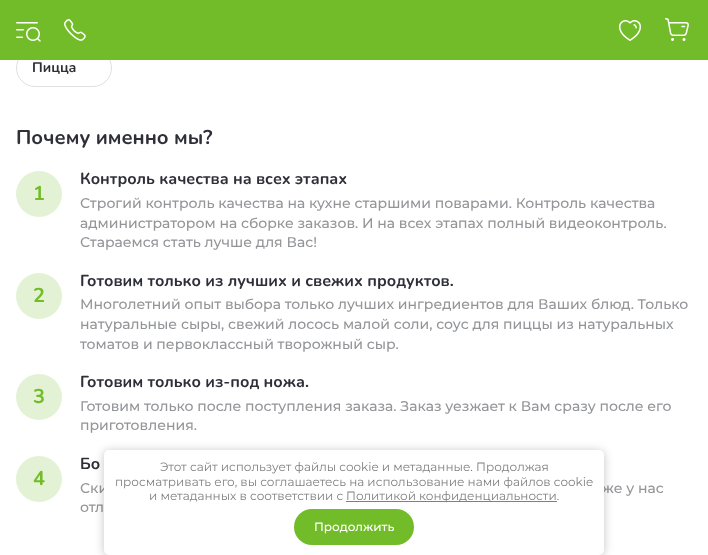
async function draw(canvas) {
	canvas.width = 708;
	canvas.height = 555;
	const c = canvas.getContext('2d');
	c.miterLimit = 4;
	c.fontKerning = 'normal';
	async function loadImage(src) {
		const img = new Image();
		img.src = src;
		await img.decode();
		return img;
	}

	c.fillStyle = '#fff';
	c.fillRect(0, 0, 708, 555);
	c.beginPath();
	c.roundRect(16.5, 49.5, 95, 37, 18.5);
	c.strokeStyle = '#e0e0e0';
	c.stroke();
	c.fillStyle = '#73bc29';
	c.fillRect(0, 0, 708, 60);
	c.drawImage(await loadImage('img1.png'), 16, 22, 25, 20);
	c.drawImage(await loadImage('img2.png'), 64, 19, 22, 22);
	c.drawImage(await loadImage('img3.png'), 619, 20, 22, 21);
	c.drawImage(await loadImage('img4.png'), 665, 18, 24, 23);
	c.font = 'bold 14px Nunito';
	c.fillStyle = '#2e2f38';
	c.fillText('Пицца', 32, 72);
	c.font = 'bold 20px Nunito';
	c.fillText('Почему именно мы?', 16, 144);
	c.fillStyle = '#e3f2d4';
	c.beginPath();
	c.arc(39, 194, 23, 0, 2 * Math.PI);
	c.fill();
	c.fillStyle = '#73bc29';
	c.fillText('1', 33, 200);
	c.font = 'bold 16px Nunito';
	c.fillStyle = '#2e2f38';
	c.fillText('Контроль качества на всех этапах', 80, 184);
	c.font = '500 14px Montserrat';
	c.fillStyle = '#939598';
	for (const [text, x, y] of [
		['Строгий контроль качества на кухне старшими поварами. Контроль качества', 80, 208],
		['администратором на сборке заказов. И на всех этапах полный видеоконтроль.', 80, 228],
		['Стараемся стать лучше для Вас!', 80, 247],
	]) {
		c.fillText(text, x, y);
	}
	c.fillStyle = '#e3f2d4';
	c.beginPath();
	c.arc(39, 296, 23, 0, 2 * Math.PI);
	c.fill();
	c.font = 'bold 20px Nunito';
	c.fillStyle = '#73bc29';
	c.fillText('2', 33, 302);
	c.font = 'bold 16px Nunito';
	c.fillStyle = '#2e2f38';
	c.fillText('Готовим только из лучших и свежих продуктов.', 80, 286);
	c.font = '500 14px Montserrat';
	c.fillStyle = '#939598';
	for (const [text, x, y] of [
		['Многолетний опыт выбора только лучших ингредиентов для Ваших блюд. Только', 80, 309],
		['натуральные сыры, свежий лосось малой соли, соус для пиццы из натуральных', 80, 329],
		['томатов и первоклассный творожный сыр.', 80, 349],
	]) {
		c.fillText(text, x, y);
	}
	c.fillStyle = '#e3f2d4';
	c.beginPath();
	c.arc(39, 397, 23, 0, 2 * Math.PI);
	c.fill();
	c.font = 'bold 20px Nunito';
	c.fillStyle = '#73bc29';
	c.fillText('3', 33, 403);
	c.font = 'bold 16px Nunito';
	c.fillStyle = '#2e2f38';
	c.fillText('Готовим только из-под ножа.', 80, 387);
	c.font = '500 14px Montserrat';
	c.fillStyle = '#939598';
	c.fillText('Готовим только после поступления заказа. Заказ уезжает к Вам сразу после его', 80, 411);
	c.fillText('приготовления.', 80, 430);
	c.fillStyle = '#e3f2d4';
	c.beginPath();
	c.arc(39, 479, 23, 0, 2 * Math.PI);
	c.fill();
	c.font = 'bold 20px Nunito';
	c.fillStyle = '#73bc29';
	c.fillText('4', 33, 485);
	c.font = 'bold 16px Nunito';
	c.fillStyle = '#2e2f38';
	c.fillText('Бо', 80, 469);
	c.font = '500 14px Montserrat';
	c.fillStyle = '#939598';
	for (const [text, x, y] of [
		['Ски', 80, 493],
		['же у нас', 602, 493],
		['отл', 80, 512],
	]) {
		c.fillText(text, x, y);
	}
	c.fillStyle = '#0000003b';
	c.filter = 'blur(5px)';
	c.beginPath();
	c.roundRect(104, 451, 500, 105, 5);
	c.fill();
	c.filter = 'none';
	c.fillStyle = '#fff';
	c.beginPath();
	c.roundRect(104, 450, 500, 105, 5);
	c.fill();
	c.font = '12px Montserrat';
	c.fillStyle = '#808080';
	for (const [text, x, y] of [
		['Этот сайт использует файлы cookie и метаданные. Продолжая', 160, 471],
		['просматривать его, вы соглашаетесь на использование нами файлов cookie', 115, 486],
		['и метаданных в соответствии с', 149, 500],
	]) {
		c.fillText(text, x, y);
	}
	c.fillRect(346, 501, 211, 1);
	c.fillText('Политикой конфиденциальности.', 346, 500);
	c.fillStyle = '#73bc29';
	c.beginPath();
	c.roundRect(294, 509, 120, 36, 18);
	c.fill();
	c.font = '500 12px Montserrat';
	c.fillStyle = '#fff';
	c.fillText('Продолжить', 314, 531);
}

draw(document.querySelector('canvas'));
